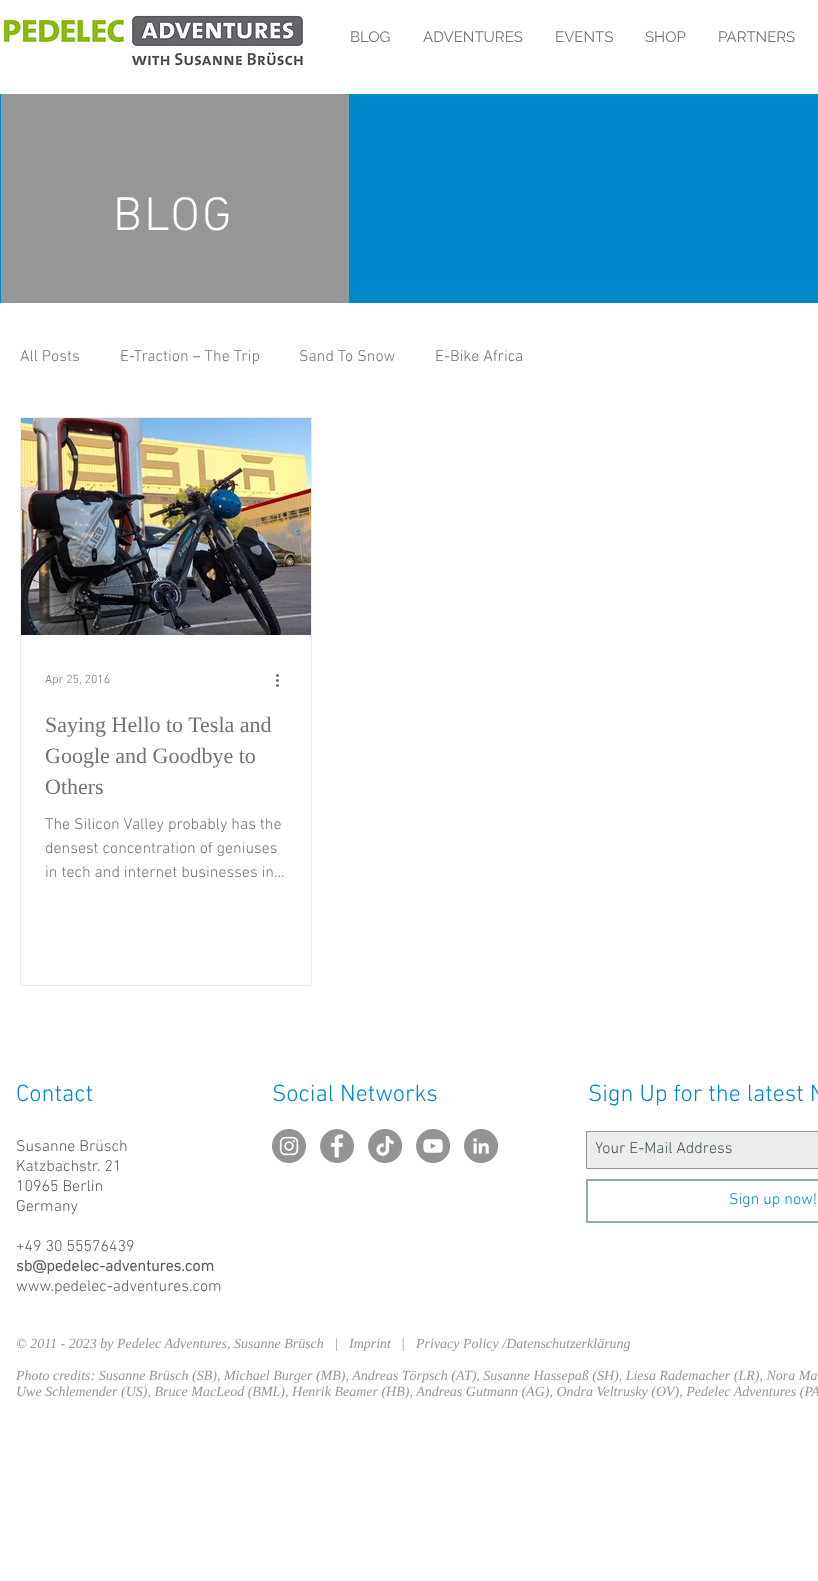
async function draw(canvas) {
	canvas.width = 818;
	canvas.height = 1581;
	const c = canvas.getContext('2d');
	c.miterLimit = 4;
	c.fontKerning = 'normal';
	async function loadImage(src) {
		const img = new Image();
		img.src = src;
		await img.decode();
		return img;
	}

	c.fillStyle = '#fff';
	c.fillRect(0, 0, 818, 1581);
	c.drawImage(await loadImage('img1.png'), 3, 15, 300, 51);
	c.font = '15px Raleway';
	c.fillStyle = '#727272';
	for (const [text, x, y] of [
		['BLOG', 350, 42],
		['ADVENTURES', 423, 42],
		['EVENTS', 555, 42],
		['SHOP', 645, 42],
		['PARTNERS', 718, 42],
	]) {
		c.fillText(text, x, y);
	}
	c.fillStyle = '#0088cb';
	c.fillRect(0, 94, 818, 209);
	c.fillStyle = '#969696';
	c.fillRect(1, 94, 348, 209);
	c.letterSpacing = '2.5px';
	c.font = '300 48px "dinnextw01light"';
	c.fillStyle = '#fff';
	c.fillText('BLOG', 113, 230);
	c.letterSpacing = '0px';
	c.font = '300 16px "dinnextw01light"';
	c.fillStyle = '#727272';
	for (const [text, x, y] of [
		['All Posts', 20, 361],
		['E-Traction – The Trip', 120, 361],
		['Sand To Snow', 299, 361],
		['E-Bike Africa', 435, 361],
	]) {
		c.fillText(text, x, y);
	}
	c.strokeStyle = '#ececec';
	c.strokeRect(20.5, 417.5, 291, 568);
	c.drawImage(await loadImage('img2.png'), 21, 418, 290, 217);
	c.font = '300 12px "dinnextw01light"';
	c.fillText('Apr 25, 2016', 45, 683);
	c.drawImage(await loadImage('img3.png'), 276, 674, 3, 13);
	c.font = '22px Liberation Serif';
	for (const [text, x, y] of [
		['Saying Hello to Tesla and', 45, 732],
		['Google and Goodbye to', 45, 763],
		['Others', 45, 794],
	]) {
		c.fillText(text, x, y);
	}
	c.font = '300 16px "dinnextw01light"';
	for (const [text, x, y] of [
		['The Silicon Valley probably has the', 45, 829],
		['densest concentration of geniuses', 45, 853],
		['in tech and internet businesses in…', 45, 877],
	]) {
		c.fillText(text, x, y);
	}
	c.font = '300 24px "dinnextw01light"';
	c.fillStyle = '#0088cb';
	c.fillText('Contact', 16, 1101);
	c.font = '300 16px "dinnextw01light"';
	c.fillStyle = '#595959';
	for (const [text, x, y] of [
		['Susanne Brüsch', 16, 1151],
		['Katzbachstr. 21', 16, 1171],
		['10965 Berlin', 16, 1191],
		['Germany', 16, 1211],
		['+49 30 55576439', 16, 1251],
	]) {
		c.fillText(text, x, y);
	}
	c.font = 'bold 16px "dinnextw01light"';
	c.fillText('sb@pedelec-adventures.com', 16, 1271);
	c.font = '300 16px "dinnextw01light"';
	c.fillText('www.pedelec-adventures.com', 16, 1291);
	c.font = '300 24px "dinnextw01light"';
	c.fillStyle = '#0088cb';
	c.fillText('Social Networks', 272, 1101);
	c.fillText('Sign Up for the latest N', 588, 1101);
	c.fillStyle = '#ececec';
	c.beginPath();
	c.rect(586.5, 1131.5, 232, 37);
	c.fill();
	c.strokeStyle = '#969696';
	c.stroke();
	c.font = '300 16px "dinnextw01light"';
	c.fillStyle = '#455757';
	c.fillText('Your E-Mail Address', 595, 1153);
	c.strokeStyle = '#92adad';
	c.lineWidth = 2;
	c.strokeRect(587, 1180, 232, 42);
	c.fillStyle = '#0088cb';
	c.fillText('Sign up now!', 729, 1204);
	c.drawImage(await loadImage('img4.png'), 272, 1129, 34, 34);
	c.drawImage(await loadImage('img5.png'), 320, 1129, 34, 34);
	c.drawImage(await loadImage('img6.png'), 368, 1129, 34, 34);
	c.drawImage(await loadImage('img7.png'), 416, 1129, 34, 34);
	c.drawImage(await loadImage('img8.png'), 464, 1129, 34, 34);
	c.font = 'italic 14px Liberation Serif';
	c.fillStyle = '#969696';
	for (const [text, x, y] of [
		['© 2011 - 2023 by Pedelec Adventures, Susanne Brüsch   |', 16, 1348],
		['Imprint', 349, 1348],
		['|', 401, 1348],
		['Privacy Policy /Datenschutzerklärung', 416, 1348],
		['Photo credits: Susanne Brüsch (SB), Michael Burger (MB), Andreas Törpsch (AT), Susanne Hassepaß (SH), Liesa Rademacher (LR), Nora Ma', 16, 1380],
		['Uwe Schlemender (US), Bruce MacLeod (BML), Henrik Beamer (HB), Andreas Gutmann (AG), Ondra Veltrusky (OV), Pedelec Adventures (PA', 16, 1396],
	]) {
		c.fillText(text, x, y);
	}
}

draw(document.querySelector('canvas'));
